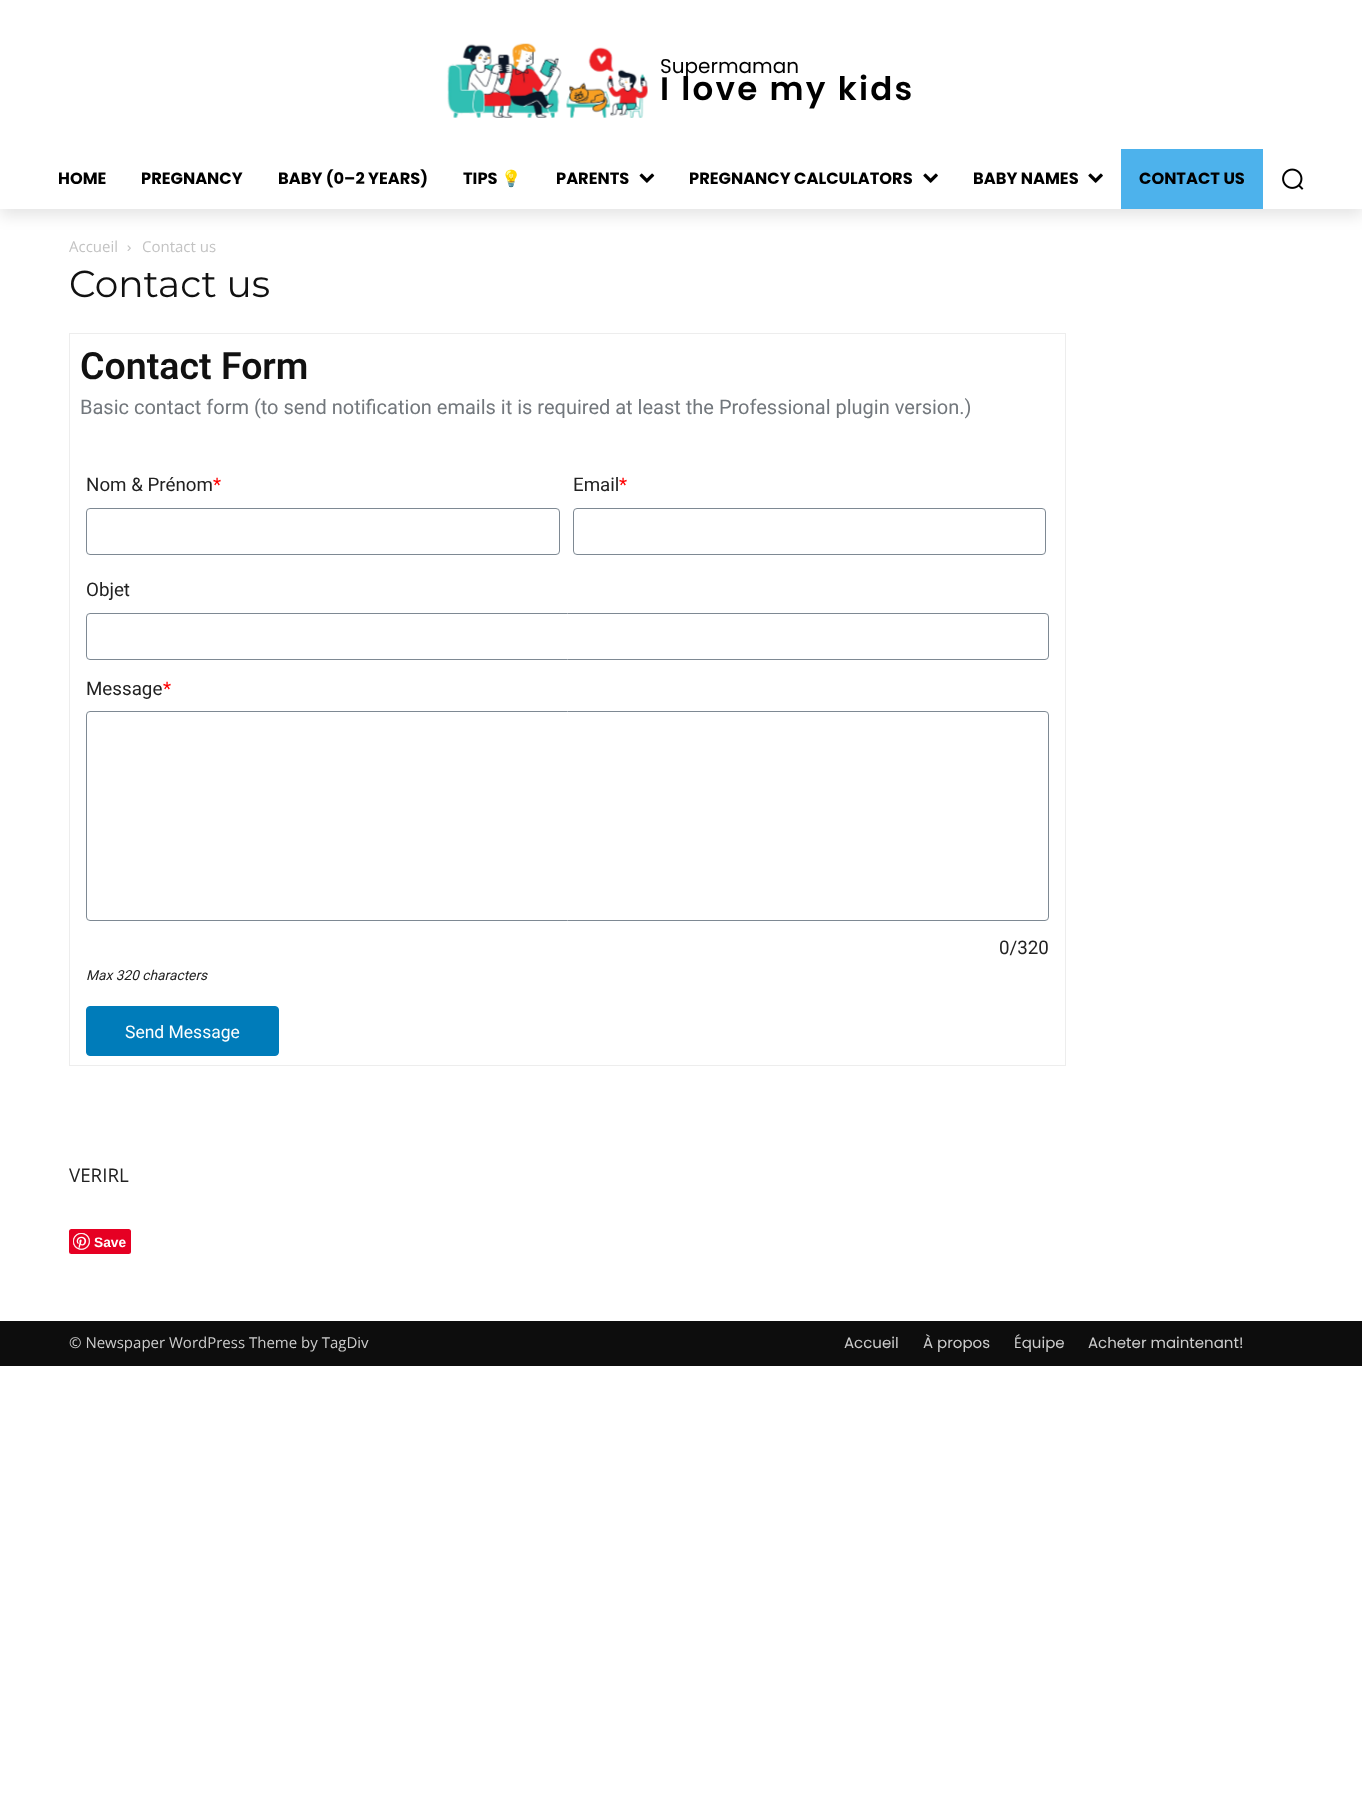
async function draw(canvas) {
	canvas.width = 1362;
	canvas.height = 1816;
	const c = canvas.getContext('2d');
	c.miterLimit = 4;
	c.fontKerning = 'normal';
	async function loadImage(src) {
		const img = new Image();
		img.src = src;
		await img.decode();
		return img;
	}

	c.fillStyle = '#fff';
	c.fillRect(0, 0, 1362, 1816);
	c.drawImage(await loadImage('img1.png'), 447, 43, 201, 75);
	c.save();
	c.beginPath();
	c.moveTo(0, 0);
	c.lineTo(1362, 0);
	c.lineTo(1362, 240);
	c.lineTo(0, 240);
	c.closePath();
	c.moveTo(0, 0);
	c.lineTo(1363, 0);
	c.lineTo(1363, 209);
	c.lineTo(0, 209);
	c.closePath();
	c.clip('evenodd');
	c.fillStyle = '#0000001a';
	c.filter = 'blur(7.5px)';
	c.beginPath();
	c.rect(0, 8, 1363, 208);
	c.fill();
	c.filter = 'none';
	c.restore();
	c.font = '20px Poppins';
	c.fillStyle = '#000';
	c.fillText('Supermaman', 660, 73);
	c.letterSpacing = '2.25px';
	c.font = '600 32.5px Poppins';
	c.fillText('I love my kids', 660, 100);
	c.letterSpacing = '0px';
	c.font = 'bold 16.25px Poppins';
	for (const [text, x, y] of [
		['HOME', 58, 184],
		['PREGNANCY', 141, 184],
		['BABY (0–2 YEARS)', 278, 184],
		['TIPS', 463, 184],
	]) {
		c.fillText(text, x, y);
	}
	c.font = 'bold 16.25px Noto Color Emoji';
	c.fillText('💡', 501, 184);
	c.font = 'bold 16.25px Poppins';
	c.fillText('PARENTS', 556, 184);
	c.drawImage(await loadImage('img2.png'), 639, 173, 16, 10);
	c.fillText('PREGNANCY CALCULATORS', 689, 184);
	c.drawImage(await loadImage('img3.png'), 923, 173, 15, 10);
	c.fillText('BABY NAMES', 973, 184);
	c.drawImage(await loadImage('img3.png'), 1088, 173, 15, 10);
	c.fillStyle = '#4db2ec';
	c.fillRect(1121, 149, 142, 60);
	c.fillStyle = '#000';
	c.fillText('CONTACT US', 1139, 184);
	c.drawImage(await loadImage('img4.png'), 1282, 168, 22, 22);
	c.font = '15px Open Sans';
	c.fillStyle = '#c3c3c3';
	c.fillText('Accueil', 69, 252);
	c.drawImage(await loadImage('img5.png'), 127, 245, 4, 6);
	c.fillText('Contact us', 142, 252);
	c.font = '37.5px Montserrat';
	c.fillStyle = '#111';
	c.fillText('Contact us', 69, 297);
	for (const [x, y, w, h, color] of [
		[69, 333, 997, 1, '#ededed'],
		[1065, 333, 1, 733, '#ededed'],
		[69, 1065, 997, 1, '#ededed'],
		[69, 333, 1, 733, '#ededed'],
	]) {
		c.fillStyle = color;
		c.fillRect(x, y, w, h);
	}
	c.font = '600 37.5px Roboto';
	c.fillStyle = '#111';
	c.fillText('Contact Form', 80, 379);
	c.font = '20px Roboto';
	c.fillStyle = '#72777c';
	c.fillText('Basic contact form (to send notification emails it is required at least the Professional plugin version.)', 80, 414);
	c.font = '18.75px Roboto';
	c.fillStyle = '#222';
	c.fillText('Nom & Prénom', 86, 491);
	c.fillStyle = '#f00';
	c.fillText('*', 213, 491);
	c.beginPath();
	c.roundRect(86.5, 508.5, 473, 46, 3.5);
	c.strokeStyle = '#7e8993';
	c.stroke();
	c.fillStyle = '#222';
	c.fillText('Email', 573, 491);
	c.fillStyle = '#f00';
	c.fillText('*', 619, 491);
	c.beginPath();
	c.roundRect(573.5, 508.5, 472, 46, 3.5);
	c.stroke();
	c.fillStyle = '#222';
	c.fillText('Objet', 86, 596);
	c.beginPath();
	c.roundRect(86.5, 613.5, 962, 46, 3.5);
	c.stroke();
	c.fillText('Message', 86, 695);
	c.fillStyle = '#f00';
	c.fillText('*', 163, 695);
	c.beginPath();
	c.roundRect(86.5, 711.5, 962, 209, 3.5);
	c.stroke();
	c.fillStyle = '#222';
	c.fillText('0/320', 999, 954);
	c.font = 'italic 13.75px Roboto';
	c.fillText('Max 320 characters', 86, 980);
	c.fillStyle = '#007cba';
	c.beginPath();
	c.roundRect(86.5, 1006.5, 192, 49, 3.5);
	c.fill();
	c.strokeStyle = '#007cba';
	c.stroke();
	c.font = '17.5px Roboto';
	c.fillStyle = '#fff';
	c.fillText('Send Message', 125, 1038);
	c.font = '18.75px Open Sans';
	c.fillStyle = '#222';
	c.fillText('VERIRL', 69, 1182);
	c.fillStyle = '#e60023';
	c.beginPath();
	c.roundRect(69, 1229, 62, 25, 2.5);
	c.fill();
	c.drawImage(await loadImage('img6.png'), 73, 1233, 17, 17);
	c.font = 'bold 13.75px Liberation Sans';
	c.fillStyle = '#fff';
	c.fillText('Save', 94, 1247);
	c.fillStyle = '#0d0d0d';
	c.fillRect(0, 1321, 1362, 45);
	c.font = '15px Open Sans';
	c.fillStyle = '#ccc';
	c.fillText('© Newspaper WordPress Theme by TagDiv', 69, 1348);
	c.font = '15px Poppins';
	for (const [text, x, y] of [
		['Accueil', 844, 1348],
		['À propos', 923, 1348],
		['Équipe', 1014, 1348],
		['Acheter maintenant!', 1088, 1348],
	]) {
		c.fillText(text, x, y);
	}
}

draw(document.querySelector('canvas'));
